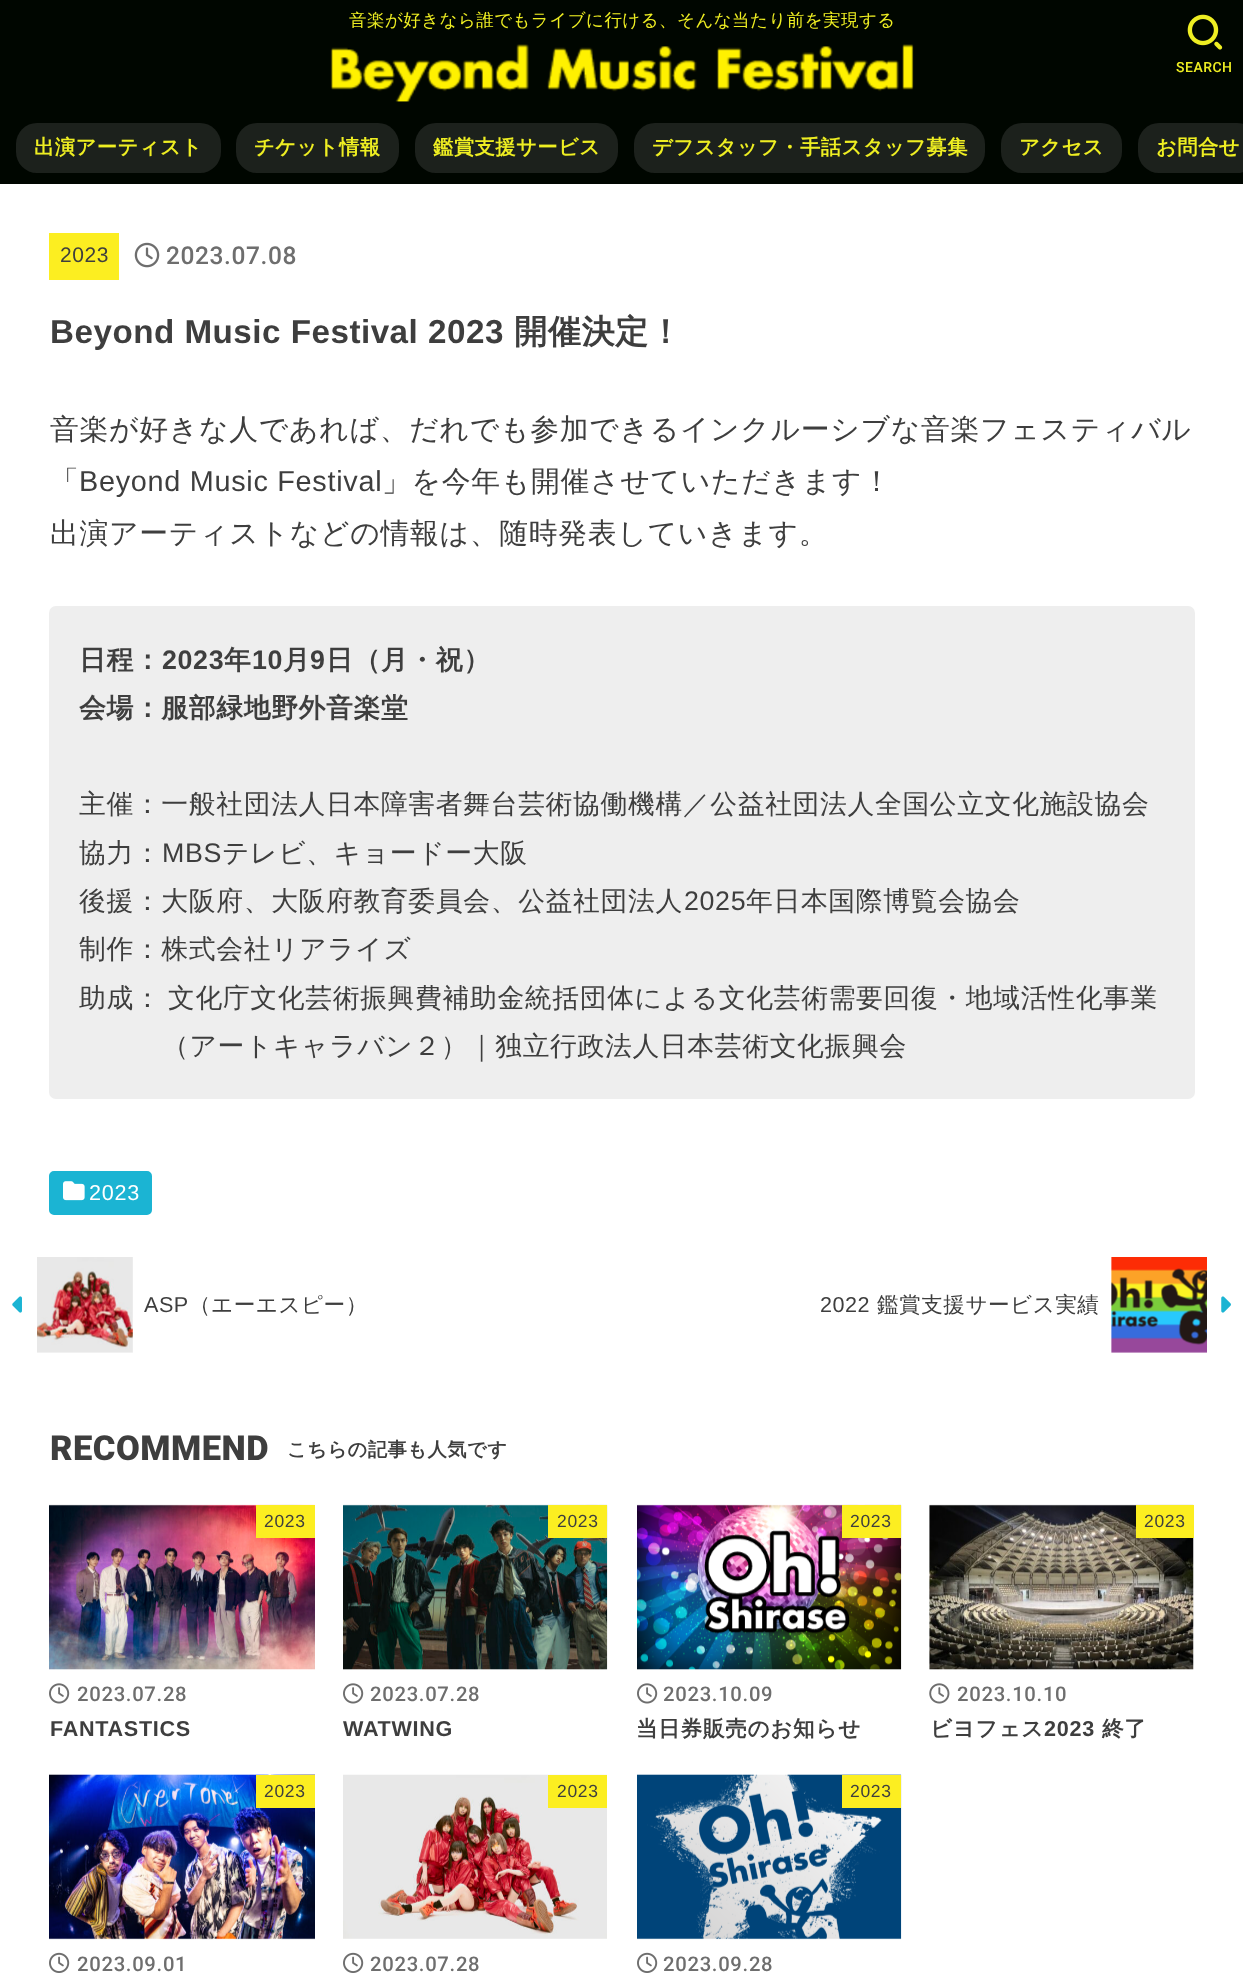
async function draw(canvas) {
	canvas.width = 1243;
	canvas.height = 1987;
	const c = canvas.getContext('2d');
	c.miterLimit = 4;
	c.fontKerning = 'normal';
	async function loadImage(src) {
		const img = new Image();
		img.src = src;
		await img.decode();
		return img;
	}

	c.fillStyle = '#000600';
	c.fillRect(0, 0, 1243, 1987);
	c.letterSpacing = '0.45px';
	c.font = '500 17.5px WenQuanYi Zen Hei';
	c.fillStyle = '#ee2';
	c.fillText('音楽が好きなら誰でもライブに行ける、そんな当たり前を実現する', 349, 26);
	c.drawImage(await loadImage('img1.png'), 330, 44, 584, 58);
	c.drawImage(await loadImage('img2.png'), 1187, 14, 36, 36);
	c.letterSpacing = '0.5px';
	c.font = '500 14px Roboto';
	c.fillText('SEARCH', 1176, 72);
	c.fillStyle = '#1c211c';
	c.beginPath();
	c.roundRect(16, 123, 205, 50, 21);
	c.fill();
	c.font = 'bold 20.25px WenQuanYi Zen Hei';
	c.fillStyle = '#ee2';
	c.fillText('出演アーティスト', 34, 154);
	c.fillStyle = '#1c211c';
	c.beginPath();
	c.roundRect(236, 123, 163, 50, 21);
	c.fill();
	c.fillStyle = '#ee2';
	c.fillText('チケット情報', 254, 154);
	c.fillStyle = '#1c211c';
	c.beginPath();
	c.roundRect(415, 123, 203, 50, 21);
	c.fill();
	c.fillStyle = '#ee2';
	c.fillText('鑑賞支援サービス', 433, 154);
	c.fillStyle = '#1c211c';
	c.beginPath();
	c.roundRect(634, 123, 351, 50, 21);
	c.fill();
	c.fillStyle = '#ee2';
	c.fillText('デフスタッフ・手話スタッフ募集', 652, 154);
	c.fillStyle = '#1c211c';
	c.beginPath();
	c.roundRect(1001, 123, 121, 50, 21);
	c.fill();
	c.fillStyle = '#ee2';
	c.fillText('アクセス', 1019, 154);
	c.fillStyle = '#1c211c';
	c.beginPath();
	c.roundRect(1138, 123, 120, 50, 21);
	c.fill();
	c.fillStyle = '#ee2';
	c.fillText('お問合せ', 1156, 154);
	c.fillStyle = '#fff';
	c.fillRect(0, 184, 1243, 1803);
	c.fillStyle = '#fcee21';
	c.fillRect(49, 233, 70, 47);
	c.letterSpacing = '0.6px';
	c.font = '21px Liberation Sans';
	c.fillStyle = '#3e3e3e';
	c.fillText('2023', 60, 262);
	c.drawImage(await loadImage('img3.png'), 134, 242, 26, 26);
	c.font = '500 24.5px Roboto';
	c.fillStyle = '#6e6e6e';
	c.fillText('2023.07.08', 166, 264);
	c.letterSpacing = '0.5px';
	c.font = 'bold 33.2px Liberation Sans';
	c.fillStyle = '#3e3e3e';
	c.fillText('Beyond Music Festival 2023', 50, 343);
	c.font = 'bold 33.2px WenQuanYi Zen Hei';
	c.fillText('開催決定！', 514, 343);
	c.letterSpacing = '0.7px';
	c.font = '500 28.85px WenQuanYi Zen Hei';
	c.fillText('音楽が好きな人であれば、だれでも参加できるインクルーシブな音楽フェスティバル', 50, 439);
	c.fillText('「', 50, 491);
	c.font = '28.85px Liberation Sans';
	c.fillText('Beyond Music Festival', 79, 491);
	c.font = '500 28.85px WenQuanYi Zen Hei';
	c.fillText('」を今年も開催させていただきます！', 382, 491);
	c.fillText('出演アーティストなどの情報は、随時発表していきます。', 50, 543);
	c.fillStyle = '#eee';
	c.beginPath();
	c.roundRect(49, 606, 1146, 493, 7);
	c.fill();
	c.letterSpacing = '0.65px';
	c.font = 'bold 26.8px WenQuanYi Zen Hei';
	c.fillStyle = '#3e3e3e';
	c.fillText('日程：', 79, 669);
	c.font = 'bold 26.8px Liberation Sans';
	c.fillText('2023', 162, 669);
	c.font = 'bold 26.8px WenQuanYi Zen Hei';
	c.fillText('年', 224, 669);
	c.font = 'bold 26.8px Liberation Sans';
	c.fillText('10', 252, 669);
	c.font = 'bold 26.8px WenQuanYi Zen Hei';
	c.fillText('月', 283, 669);
	c.font = 'bold 26.8px Liberation Sans';
	c.fillText('9', 310, 669);
	c.font = 'bold 26.8px WenQuanYi Zen Hei';
	c.fillText('日（月・祝）', 326, 669);
	c.fillText('会場：服部緑地野外音楽堂', 79, 717);
	c.font = '500 26.8px WenQuanYi Zen Hei';
	c.fillText('主催：一般社団法人日本障害者舞台芸術協働機構／公益社団法人全国公立文化施設協会', 79, 813);
	c.fillText('協力：', 79, 862);
	c.font = '26.8px Liberation Sans';
	c.fillText('MBS', 162, 862);
	c.font = '500 26.8px WenQuanYi Zen Hei';
	c.fillText('テレビ、キョードー大阪', 222, 862);
	c.fillText('後援：大阪府、大阪府教育委員会、公益社団法人', 79, 910);
	c.font = '26.8px Liberation Sans';
	c.fillText('2025', 684, 910);
	c.font = '500 26.8px WenQuanYi Zen Hei';
	c.fillText('年日本国際博覧会協会', 746, 910);
	c.fillText('制作：株式会社リアライズ', 79, 958);
	c.wordSpacing = '-2px';
	c.fillText('助成： 文化庁文化芸術振興費補助金統括団体による文化芸術需要回復・地域活性化事業', 79, 1007);
	c.wordSpacing = '0px';
	c.fillText('（アートキャラバン２）｜独立行政法人日本芸術文化振興会', 162, 1055);
	c.fillStyle = '#1bb4d3';
	c.beginPath();
	c.roundRect(50, 1172, 101, 42, 4);
	c.fill();
	c.strokeStyle = '#1bb4d3';
	c.lineWidth = 2;
	c.stroke();
	c.drawImage(await loadImage('img4.png'), 63, 1181, 22, 20);
	c.letterSpacing = '0.7px';
	c.font = '21.6px Liberation Sans';
	c.fillStyle = '#fff';
	c.fillText('2023', 89, 1200);
	c.drawImage(await loadImage('img5.png'), 12, 1296, 10, 17);
	c.drawImage(await loadImage('img6.png'), 37, 1257, 96, 96);
	c.letterSpacing = '0.5px';
	c.fillStyle = '#3e3e3e';
	c.fillText('ASP', 144, 1312);
	c.font = '500 21.6px WenQuanYi Zen Hei';
	c.fillText('（エーエスピー）', 189, 1312);
	c.font = '21.6px Liberation Sans';
	c.fillText('2022', 820, 1312);
	c.font = '500 21.6px WenQuanYi Zen Hei';
	c.fillText('鑑賞支援サービス実績', 877, 1312);
	c.drawImage(await loadImage('img7.png'), 1111, 1257, 96, 96);
	c.drawImage(await loadImage('img8.png'), 1221, 1296, 10, 17);
	c.font = '900 34.5px Roboto';
	c.fillText('RECOMMEND', 50, 1460);
	c.font = 'bold 19.25px WenQuanYi Zen Hei';
	c.fillText('こちらの記事も人気です', 287, 1456);
	c.drawImage(await loadImage('img9.png'), 49, 1504, 266, 166);
	c.fillStyle = '#fcee21';
	c.fillRect(256, 1505, 59, 33);
	c.letterSpacing = '0.7px';
	c.font = '17.5px Liberation Sans';
	c.fillStyle = '#3e3e3e';
	c.fillText('2023', 264, 1527);
	c.drawImage(await loadImage('img10.png'), 49, 1683, 21, 21);
	c.font = '500 20.25px Roboto';
	c.fillStyle = '#6e6e6e';
	c.fillText('2023.07.28', 77, 1701);
	c.font = 'bold 21.6px Liberation Sans';
	c.fillStyle = '#3e3e3e';
	c.fillText('FANTASTICS', 50, 1736);
	c.drawImage(await loadImage('img11.png'), 343, 1504, 265, 166);
	c.fillStyle = '#fcee21';
	c.fillRect(548, 1505, 59, 33);
	c.font = '17.5px Liberation Sans';
	c.fillStyle = '#3e3e3e';
	c.fillText('2023', 557, 1527);
	c.drawImage(await loadImage('img10.png'), 343, 1683, 21, 21);
	c.font = '500 20.25px Roboto';
	c.fillStyle = '#6e6e6e';
	c.fillText('2023.07.28', 370, 1701);
	c.font = 'bold 21.6px Liberation Sans';
	c.fillStyle = '#3e3e3e';
	c.fillText('WATWING', 343, 1736);
	c.drawImage(await loadImage('img12.png'), 637, 1504, 265, 166);
	c.fillStyle = '#fcee21';
	c.fillRect(842, 1505, 59, 33);
	c.font = '17.5px Liberation Sans';
	c.fillStyle = '#3e3e3e';
	c.fillText('2023', 850, 1527);
	c.drawImage(await loadImage('img10.png'), 637, 1683, 21, 21);
	c.font = '500 20.25px Roboto';
	c.fillStyle = '#6e6e6e';
	c.fillText('2023.10.09', 663, 1701);
	c.font = 'bold 21.6px WenQuanYi Zen Hei';
	c.fillStyle = '#3e3e3e';
	c.fillText('当日券販売のお知らせ', 636, 1736);
	c.drawImage(await loadImage('img13.png'), 929, 1504, 265, 166);
	c.fillStyle = '#fcee21';
	c.fillRect(1136, 1505, 58, 33);
	c.font = '17.5px Liberation Sans';
	c.fillStyle = '#3e3e3e';
	c.fillText('2023', 1144, 1527);
	c.drawImage(await loadImage('img14.png'), 929, 1683, 21, 21);
	c.font = '500 20.25px Roboto';
	c.fillStyle = '#6e6e6e';
	c.fillText('2023.10.10', 957, 1701);
	c.font = 'bold 21.6px WenQuanYi Zen Hei';
	c.fillStyle = '#3e3e3e';
	c.fillText('ビヨフェス', 930, 1736);
	c.font = 'bold 21.6px Liberation Sans';
	c.fillText('2023', 1044, 1736);
	c.font = 'bold 21.6px WenQuanYi Zen Hei';
	c.fillText('終了', 1102, 1736);
	c.drawImage(await loadImage('img15.png'), 49, 1774, 266, 166);
	c.fillStyle = '#fcee21';
	c.fillRect(256, 1775, 59, 33);
	c.font = '17.5px Liberation Sans';
	c.fillStyle = '#3e3e3e';
	c.fillText('2023', 264, 1797);
	c.drawImage(await loadImage('img16.png'), 49, 1952, 21, 21);
	c.font = '500 20.25px Roboto';
	c.fillStyle = '#6e6e6e';
	c.fillText('2023.09.01', 77, 1971);
	c.drawImage(await loadImage('img17.png'), 343, 1774, 264, 165);
	c.fillStyle = '#fcee21';
	c.fillRect(548, 1775, 59, 33);
	c.font = '17.5px Liberation Sans';
	c.fillStyle = '#3e3e3e';
	c.fillText('2023', 557, 1797);
	c.drawImage(await loadImage('img16.png'), 343, 1952, 21, 21);
	c.font = '500 20.25px Roboto';
	c.fillStyle = '#6e6e6e';
	c.fillText('2023.07.28', 370, 1971);
	c.drawImage(await loadImage('img18.png'), 637, 1774, 265, 166);
	c.fillStyle = '#fcee21';
	c.fillRect(842, 1775, 59, 33);
	c.font = '17.5px Liberation Sans';
	c.fillStyle = '#3e3e3e';
	c.fillText('2023', 850, 1797);
	c.drawImage(await loadImage('img16.png'), 637, 1952, 21, 21);
	c.font = '500 20.25px Roboto';
	c.fillStyle = '#6e6e6e';
	c.fillText('2023.09.28', 663, 1971);
}

draw(document.querySelector('canvas'));
